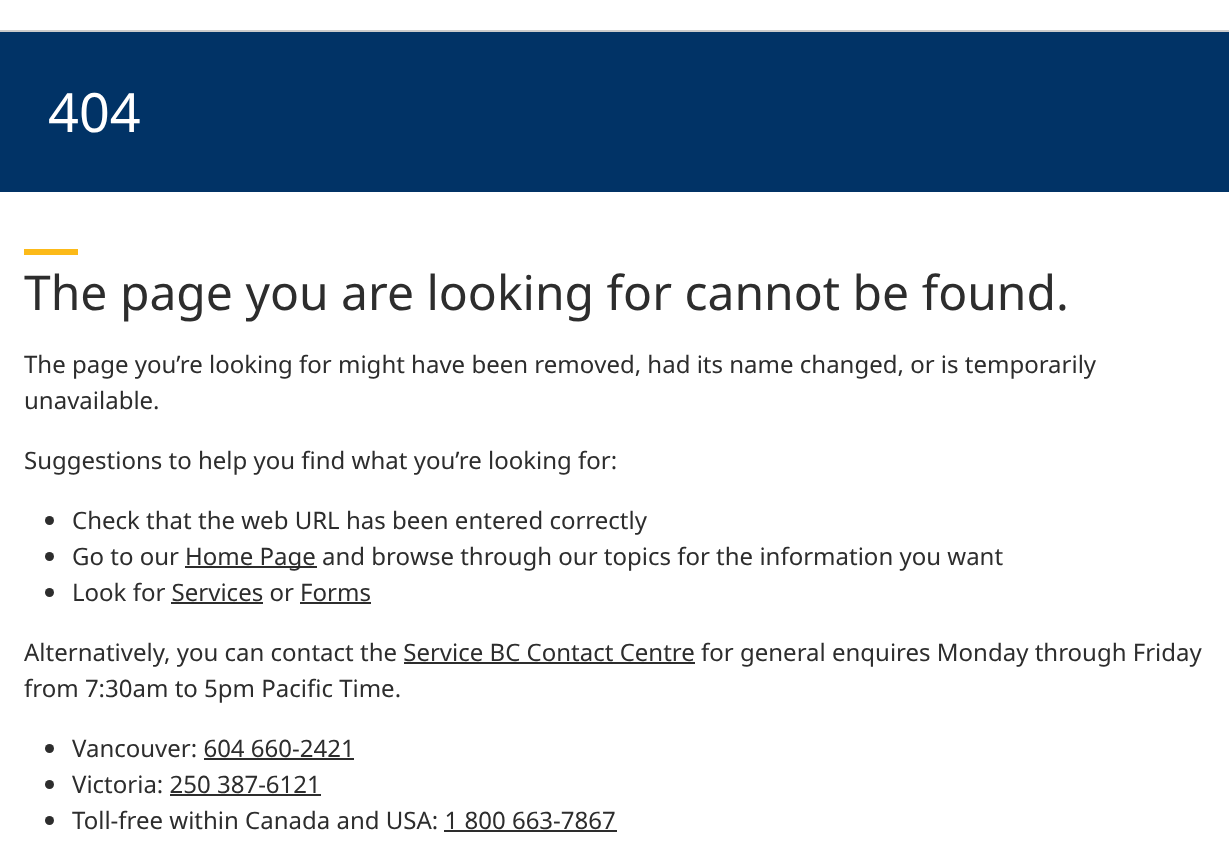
async function draw(canvas) {
	canvas.width = 1229;
	canvas.height = 848;
	const c = canvas.getContext('2d');
	c.miterLimit = 4;
	c.fontKerning = 'normal';

	c.fillStyle = '#fff';
	c.fillRect(0, 0, 1229, 848);
	c.fillStyle = '#cbcbcb';
	c.fillRect(0, 30, 1229, 2);
	c.fillStyle = '#013366';
	c.fillRect(0, 32, 1229, 160);
	c.font = '54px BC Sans';
	c.fillStyle = '#fff';
	c.fillText('404', 48, 132);
	c.fillStyle = '#fcba19';
	c.fillRect(24, 249, 54, 6);
	c.font = '48px BC Sans';
	c.fillStyle = '#2d2d2d';
	c.fillText('The page you are looking for cannot be found.', 24, 310);
	c.font = '24px BC Sans';
	for (const [text, x, y] of [
		['The page you’re looking for might have been removed, had its name changed, or is temporarily', 24, 373],
		['unavailable.', 24, 409],
		['Suggestions to help you find what you’re looking for:', 24, 469],
	]) {
		c.fillText(text, x, y);
	}
	c.beginPath();
	c.arc(49.5, 520.5, 4.5, 0, 2 * Math.PI);
	c.fill();
	c.fillText('Check that the web URL has been entered correctly', 72, 529);
	c.beginPath();
	c.arc(49.5, 556.5, 4.5, 0, 2 * Math.PI);
	c.fill();
	c.fillText('Go to our', 72, 565);
	c.fillRect(185, 566, 132, 2);
	c.fillText('Home Page and browse through our topics for the information you want', 185, 565);
	c.beginPath();
	c.arc(49.5, 592.5, 4.5, 0, 2 * Math.PI);
	c.fill();
	c.fillText('Look for Services or Forms', 72, 601);
	c.fillRect(171, 602, 92, 2);
	c.fillRect(300, 602, 71, 2);
	c.fillText('Alternatively, you can contact the Service BC Contact Centre for general enquires Monday through Friday', 24, 661);
	c.fillRect(404, 662, 291, 2);
	c.fillText('from 7:30am to 5pm Pacific Time.', 24, 697);
	c.beginPath();
	c.arc(49.5, 748.5, 4.5, 0, 2 * Math.PI);
	c.fill();
	c.fillText('Vancouver: 604 660-2421', 72, 757);
	c.fillRect(204, 758, 150, 2);
	c.beginPath();
	c.arc(49.5, 784.5, 4.5, 0, 2 * Math.PI);
	c.fill();
	c.fillText('Victoria: 250 387-6121', 72, 793);
	c.fillRect(170, 794, 151, 2);
	c.beginPath();
	c.arc(49.5, 820.5, 4.5, 0, 2 * Math.PI);
	c.fill();
	c.fillText('Toll-free within Canada and USA: 1 800 663-7867', 72, 829);
	c.fillRect(444, 830, 173, 2);
}

draw(document.querySelector('canvas'));
